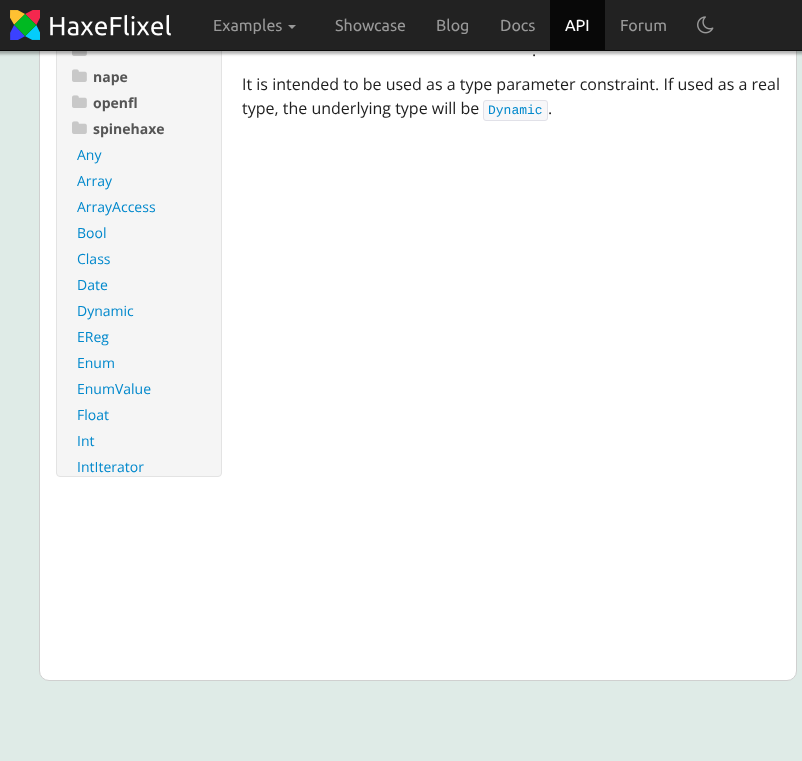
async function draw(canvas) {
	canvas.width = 802;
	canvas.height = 761;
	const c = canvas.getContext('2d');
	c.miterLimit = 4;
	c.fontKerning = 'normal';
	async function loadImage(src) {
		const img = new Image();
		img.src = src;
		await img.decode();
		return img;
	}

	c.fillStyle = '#dfebe7';
	c.fillRect(0, 0, 802, 761);
	c.fillStyle = '#fff';
	c.beginPath();
	c.roundRect(39.5, -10.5, 757, 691, 9.5);
	c.fill();
	c.strokeStyle = '#d0d0d0';
	c.stroke();
	c.fillStyle = '#f5f5f5';
	c.beginPath();
	c.roundRect(56.5, -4.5, 165, 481, 3.5);
	c.fill();
	c.strokeStyle = '#e3e3e3';
	c.stroke();
	c.drawImage(await loadImage('img3.png'), 72, 51, 15, 5);
	c.fillStyle = '#0000004d';
	c.filter = 'blur(1.5px)';
	c.beginPath();
	c.rect(-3, -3, 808, 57);
	c.fill();
	c.filter = 'none';
	c.fillStyle = '#222';
	c.fillRect(0, 0, 802, 50);
	c.fillStyle = '#080808';
	c.fillRect(0, 50, 802, 1);
	c.drawImage(await loadImage('img1.png'), 10, 10, 161, 30);
	c.font = '16px Ubuntu';
	c.fillStyle = '#999';
	c.fillText('Examples', 213, 31);
	c.beginPath();
	c.moveTo(288, 25);
	c.lineTo(296, 25);
	c.lineTo(292, 29);
	c.closePath();
	c.fill();
	for (const [text, x, y] of [
		['Showcase', 335, 31],
		['Blog', 436, 31],
		['Docs', 500, 31],
	]) {
		c.fillText(text, x, y);
	}
	c.fillStyle = '#080808';
	c.fillRect(550, 0, 55, 50);
	c.fillStyle = '#fff';
	c.fillText('API', 565, 31);
	c.fillStyle = '#999';
	c.fillText('Forum', 620, 31);
	c.drawImage(await loadImage('img2.png'), 697, 16, 17, 18);
	c.drawImage(await loadImage('img4.png'), 72, 69, 15, 13);
	c.font = 'bold 14px Open Sans';
	c.fillStyle = '#555';
	c.fillText('nape', 93, 82);
	c.drawImage(await loadImage('img4.png'), 72, 95, 15, 13);
	c.fillText('openfl', 93, 108);
	c.drawImage(await loadImage('img4.png'), 72, 121, 15, 13);
	c.fillText('spinehaxe', 93, 134);
	c.font = '14px Open Sans';
	c.fillStyle = '#08c';
	for (const [text, x, y] of [
		['Any', 77, 160],
		['Array', 77, 186],
		['ArrayAccess', 77, 212],
		['Bool', 77, 238],
		['Class', 77, 264],
		['Date', 77, 290],
		['Dynamic', 77, 316],
		['EReg', 77, 342],
		['Enum', 77, 368],
		['EnumValue', 77, 394],
		['Float', 77, 420],
		['Int', 77, 446],
		['IntIterator', 77, 472],
	]) {
		c.fillText(text, x, y);
	}
	c.font = '16px Open Sans';
	c.fillStyle = '#1e1e1e';
	for (const [text, x, y] of [
		['.', 532, 56],
		['It is intended to be used as a type parameter constraint. If used as a real', 242, 90],
		['type, the underlying type will be', 242, 114],
	]) {
		c.fillText(text, x, y);
	}
	c.fillStyle = '#f7f7f9';
	c.beginPath();
	c.roundRect(483.5, 100.5, 64, 20, 2.5);
	c.fill();
	c.strokeStyle = '#e1e1e8';
	c.stroke();
	c.font = '13px Liberation Mono';
	c.fillStyle = '#08c';
	c.fillText('Dynamic', 488, 114);
	c.font = '16px Open Sans';
	c.fillStyle = '#1e1e1e';
	c.fillText('.', 548, 114);
}

draw(document.querySelector('canvas'));
